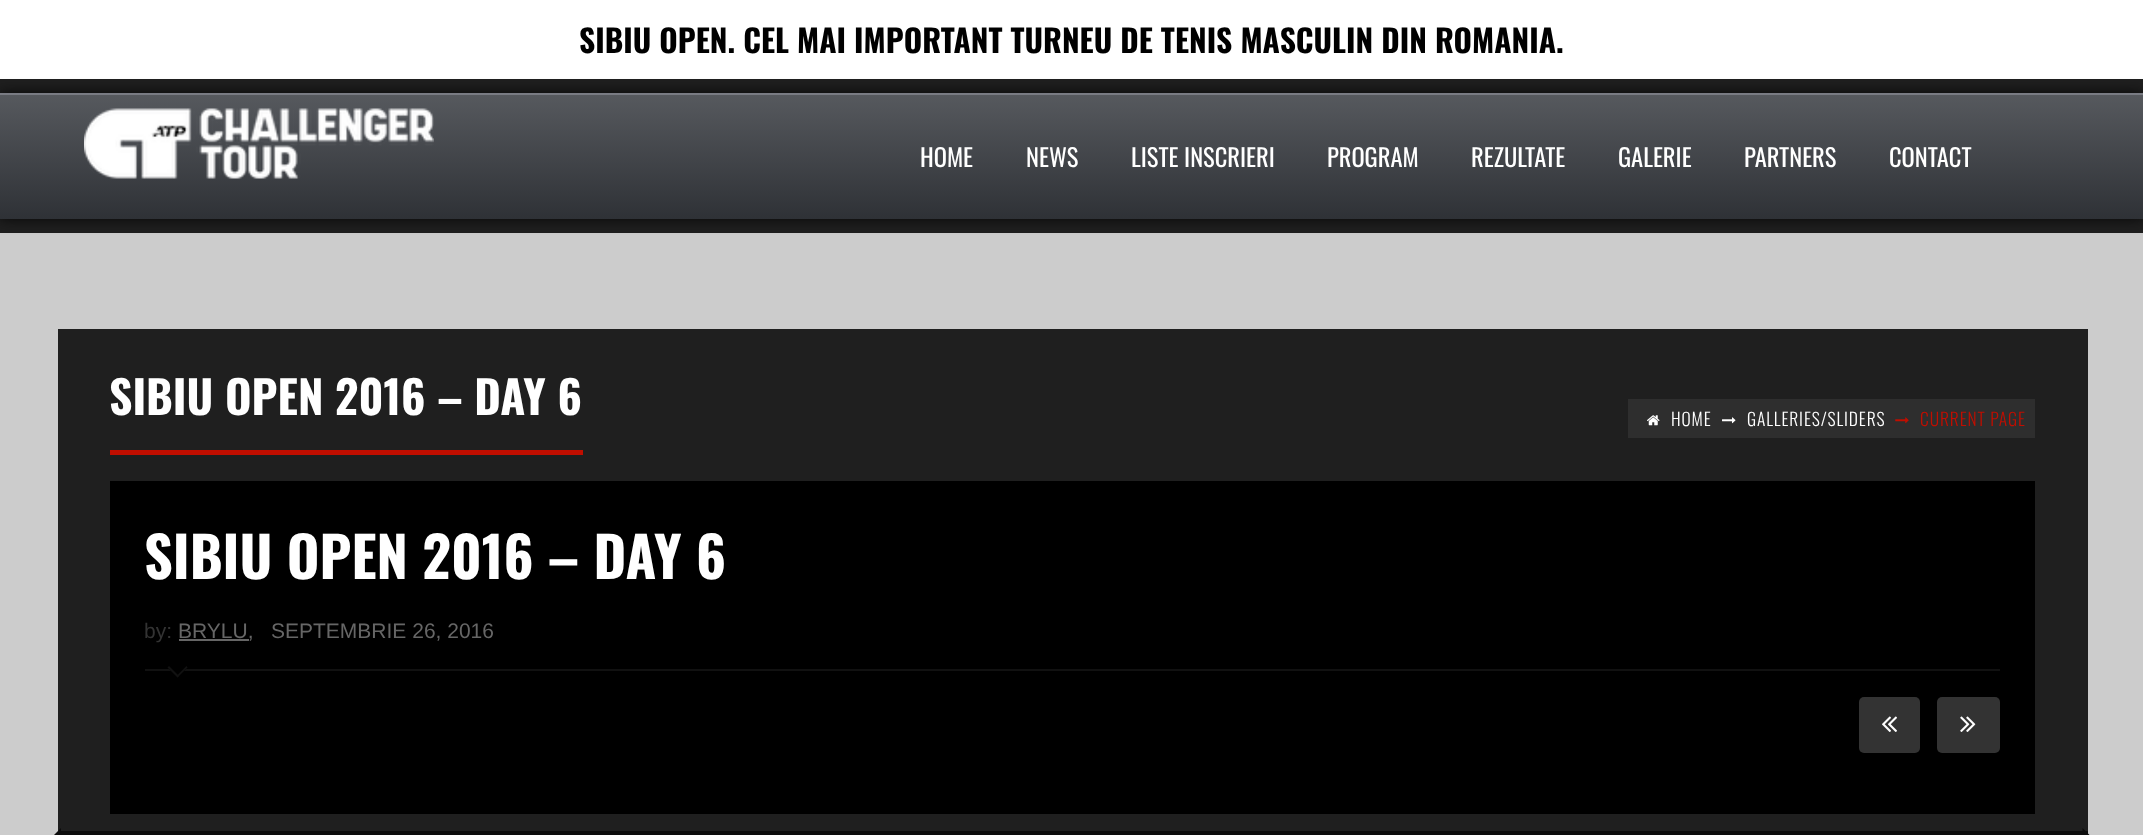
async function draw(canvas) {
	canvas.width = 2143;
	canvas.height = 835;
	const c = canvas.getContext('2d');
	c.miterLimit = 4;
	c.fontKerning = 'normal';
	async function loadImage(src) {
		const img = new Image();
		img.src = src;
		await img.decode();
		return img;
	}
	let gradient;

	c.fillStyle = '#ccc';
	c.fillRect(0, 0, 2143, 835);
	c.fillStyle = '#fff';
	c.fillRect(0, 0, 2143, 79);
	c.font = 'bold 31.5px Oswald';
	c.fillStyle = '#000';
	c.fillText('SIBIU OPEN. CEL MAI IMPORTANT TURNEU DE TENIS MASCULIN DIN ROMANIA.', 579, 53);
	c.fillStyle = '#1f1f1f';
	c.fillRect(0, 79, 2143, 14);
	c.fillRect(0, 219, 2143, 14);
	c.save();
	c.beginPath();
	c.moveTo(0, 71);
	c.lineTo(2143, 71);
	c.lineTo(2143, 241);
	c.lineTo(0, 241);
	c.closePath();
	c.moveTo(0, 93);
	c.lineTo(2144, 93);
	c.lineTo(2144, 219);
	c.lineTo(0, 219);
	c.closePath();
	c.clip('evenodd');
	c.fillStyle = '#000000cc';
	c.filter = 'blur(7px)';
	c.beginPath();
	c.rect(0, 93, 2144, 126);
	c.fill();
	c.filter = 'none';
	c.restore();
	gradient = c.createLinearGradient(1072, 94, 1072, 219);
	gradient.addColorStop(0, '#505358f2');
	gradient.addColorStop(1, '#282b30f5');
	c.fillStyle = gradient;
	c.fillRect(0, 95, 2143, 124);
	c.fillStyle = '#797b83';
	c.fillRect(0, 93, 2143, 2);
	c.drawImage(await loadImage('img1.png'), 84, 108, 350, 71);
	c.font = '24.5px Oswald';
	c.fillStyle = '#fff';
	for (const [text, x, y] of [
		['HOME', 920, 167],
		['NEWS', 1026, 167],
		['LISTE INSCRIERI', 1131, 167],
		['PROGRAM', 1327, 167],
		['REZULTATE', 1471, 167],
		['GALERIE', 1618, 167],
		['PARTNERS', 1744, 167],
		['CONTACT', 1889, 167],
	]) {
		c.fillText(text, x, y);
	}
	c.fillStyle = '#1f1f1f';
	c.fillRect(58, 329, 2030, 502);
	c.fillStyle = '#c00e00';
	c.fillRect(110, 450, 473, 5);
	c.font = 'bold 45.5px Oswald';
	c.fillStyle = '#fff';
	c.fillText('SIBIU OPEN 2016 – DAY 6', 109, 415);
	c.fillStyle = '#2e2e2e';
	c.fillRect(1628, 399, 407, 39);
	c.drawImage(await loadImage('img2.png'), 1647, 415, 13, 11);
	c.letterSpacing = '0.9px';
	c.font = '300 17.5px Oswald';
	c.fillStyle = '#fff';
	c.fillText('HOME', 1671, 426);
	c.drawImage(await loadImage('img3.png'), 1722, 417, 14, 7);
	c.fillText('GALLERIES/SLIDERS', 1747, 426);
	c.drawImage(await loadImage('img4.png'), 1895, 417, 14, 7);
	c.fillStyle = '#c00e00';
	c.fillText('CURRENT PAGE', 1920, 426);
	c.fillStyle = '#000';
	c.fillRect(110, 481, 1925, 333);
	c.letterSpacing = '0px';
	c.font = 'bold 56px Oswald';
	c.fillStyle = '#fff';
	c.fillText('SIBIU OPEN 2016 – DAY 6', 144, 579);
	c.fillStyle = '#111';
	c.fillRect(145, 669, 1855, 2);
	c.font = '21px Liberation Sans';
	c.fillStyle = '#333';
	c.fillText('by:', 144, 638);
	c.fillStyle = '#666';
	c.fillRect(179, 639, 70, 2);
	c.fillText('BRYLU,', 178, 638);
	c.fillText('SEPTEMBRIE 26, 2016', 271, 638);
	c.fillStyle = '#000';
	c.beginPath();
	c.moveTo(167.5, 667.5);
	c.lineTo(177.5, 657.5);
	c.lineTo(187.5, 667.5);
	c.lineTo(177.5, 677.5);
	c.closePath();
	c.fill();
	c.fillStyle = '#111';
	c.beginPath();
	c.moveTo(176.5, 676);
	c.lineTo(186.5, 666);
	c.lineTo(187.5, 667.5);
	c.lineTo(177.5, 677.5);
	c.closePath();
	c.fill();
	c.beginPath();
	c.moveTo(167.5, 667.5);
	c.lineTo(169, 666);
	c.lineTo(179, 676);
	c.lineTo(177.5, 677.5);
	c.closePath();
	c.fill();
	c.fillStyle = '#333';
	c.beginPath();
	c.roundRect(1859, 697, 61, 56, 5);
	c.fill();
	c.drawImage(await loadImage('img5.png'), 1882, 716, 15, 16);
	c.beginPath();
	c.roundRect(1937, 697, 63, 56, 5);
	c.fill();
	c.drawImage(await loadImage('img6.png'), 1960, 716, 16, 16);
	c.fillStyle = '#0c0c0c';
	c.fillRect(58, 831, 2030, 4);
	c.beginPath();
	c.moveTo(61, 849);
	c.lineTo(40, 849);
	c.lineTo(61, 828);
	c.closePath();
	c.fill();
	c.beginPath();
	c.moveTo(2082.5, 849);
	c.lineTo(2082.5, 828);
	c.lineTo(2103.5, 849);
	c.closePath();
	c.fill();
}

draw(document.querySelector('canvas'));
